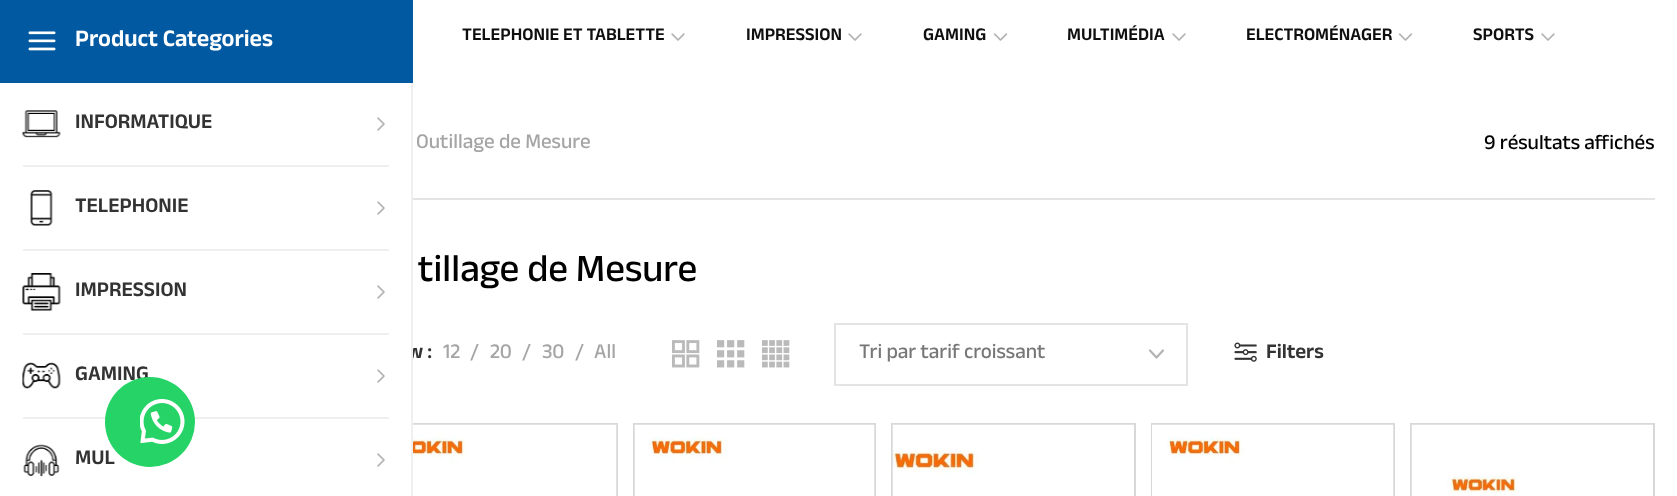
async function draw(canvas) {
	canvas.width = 1677;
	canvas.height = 496;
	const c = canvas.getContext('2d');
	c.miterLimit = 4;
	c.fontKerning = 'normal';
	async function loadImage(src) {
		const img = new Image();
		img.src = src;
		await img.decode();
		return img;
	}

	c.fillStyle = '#fff';
	c.fillRect(0, 0, 1677, 496);
	c.font = '600 21px Anek Gujarati';
	c.fillStyle = '#333';
	c.fillText('w :', 407, 358);
	c.strokeStyle = '#d8d8d8';
	c.lineWidth = 2;
	c.strokeRect(375, 424, 242, 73);
	for (const [x, y, w, h, color] of [
		[374, 347, 37, 149, '#fff'],
		[411, 83, 2, 413, '#efefef'],
		[0, 0, 413, 83, '#0159a1'],
	]) {
		c.fillStyle = color;
		c.fillRect(x, y, w, h);
	}
	c.drawImage(await loadImage('img1.png'), 28, 31, 28, 20);
	c.font = '600 24px Anek Gujarati';
	c.fillStyle = '#fff';
	c.fillText('Product Categories', 75, 46);
	c.drawImage(await loadImage('img2.png'), 22, 110, 39, 28);
	c.font = '600 21px Anek Gujarati';
	c.fillStyle = '#333';
	c.fillText('INFORMATIQUE', 75, 128);
	c.drawImage(await loadImage('img3.png'), 377, 117, 8, 14);
	c.fillStyle = '#efefef';
	c.fillRect(23, 165, 366, 2);
	c.drawImage(await loadImage('img4.png'), 30, 190, 23, 36);
	c.fillStyle = '#333';
	c.fillText('TELEPHONIE', 75, 212);
	c.drawImage(await loadImage('img3.png'), 377, 201, 8, 14);
	c.fillStyle = '#efefef';
	c.fillRect(23, 249, 366, 2);
	c.drawImage(await loadImage('img5.png'), 22, 273, 39, 38);
	c.fillStyle = '#333';
	c.fillText('IMPRESSION', 75, 296);
	c.drawImage(await loadImage('img3.png'), 377, 285, 8, 14);
	c.fillStyle = '#efefef';
	c.fillRect(23, 333, 366, 2);
	c.drawImage(await loadImage('img6.png'), 22, 362, 39, 27);
	c.fillStyle = '#333';
	c.fillText('GAMING', 75, 380);
	c.drawImage(await loadImage('img3.png'), 377, 369, 8, 14);
	c.fillStyle = '#efefef';
	c.fillRect(23, 417, 366, 2);
	c.drawImage(await loadImage('img7.png'), 23, 444, 37, 33);
	c.fillStyle = '#333';
	c.fillText('MUL', 75, 464);
	c.drawImage(await loadImage('img3.png'), 377, 453, 8, 14);
	c.font = '600 18px Anek Devanagari';
	c.fillStyle = '#0f0f0f';
	c.fillText('TELEPHONIE ET TABLETTE', 462, 40);
	c.drawImage(await loadImage('img8.png'), 671, 33, 14, 8);
	c.fillText('IMPRESSION', 746, 40);
	c.drawImage(await loadImage('img8.png'), 848, 33, 14, 8);
	c.fillText('GAMING', 923, 40);
	c.drawImage(await loadImage('img9.png'), 993, 33, 15, 8);
	c.fillText('MULTIMÉDIA', 1067, 40);
	c.drawImage(await loadImage('img8.png'), 1172, 33, 14, 8);
	c.fillText('ELECTROMÉNAGER', 1246, 40);
	c.drawImage(await loadImage('img9.png'), 1398, 33, 15, 8);
	c.fillText('SPORTS', 1473, 40);
	c.drawImage(await loadImage('img8.png'), 1541, 33, 14, 8);
	c.fillStyle = '#e4e4e4';
	c.fillRect(413, 198, 1242, 2);
	c.font = '500 21px Anek Gujarati';
	c.fillStyle = '#a5a5a5';
	c.fillText('Outillage de Mesure', 416, 148);
	c.fillStyle = '#000';
	c.fillText('9 résultats affichés', 1484, 149);
	c.font = '500 39px Anek Gujarati';
	c.fillText('tillage de Mesure', 418, 281);
	c.font = '500 21px Anek Gujarati';
	c.fillStyle = '#a5a5a5';
	for (const [text, x, y] of [
		['12', 443, 358],
		['/', 470, 358],
		['20', 490, 358],
		['/', 522, 358],
		['30', 542, 358],
		['/', 575, 358],
		['All', 594, 358],
	]) {
		c.fillText(text, x, y);
	}
	c.drawImage(await loadImage('img10.png'), 672, 340, 28, 28);
	c.drawImage(await loadImage('img11.png'), 717, 340, 28, 28);
	c.drawImage(await loadImage('img12.png'), 762, 340, 28, 28);
	c.beginPath();
	c.moveTo(1150, 350.5);
	c.lineTo(1156.5, 357.5);
	c.lineTo(1163, 350.5);
	c.strokeStyle = '#b3b3b3';
	c.lineWidth = 2.2;
	c.lineCap = 'round';
	c.lineJoin = 'round';
	c.stroke();
	c.strokeStyle = '#e4e4e4';
	c.lineWidth = 2;
	c.lineJoin = 'miter';
	c.strokeRect(835, 324, 352, 61);
	c.fillStyle = '#777';
	c.fillText('Tri par tarif croissant', 859, 358);
	c.drawImage(await loadImage('img13.png'), 1234, 342, 23, 20);
	c.font = '600 21px Anek Gujarati';
	c.fillStyle = '#333';
	c.fillText('Filters', 1266, 358);
	c.drawImage(await loadImage('img14.png'), 413, 424, 204, 72);
	c.strokeStyle = '#d8d8d8';
	c.strokeRect(634, 424, 241, 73);
	c.drawImage(await loadImage('img15.png'), 634, 424, 241, 72);
	c.strokeRect(892, 424, 243, 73);
	c.drawImage(await loadImage('img16.png'), 892, 424, 242, 72);
	c.strokeRect(1152, 424, 242, 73);
	c.drawImage(await loadImage('img17.png'), 1152, 424, 242, 72);
	c.strokeRect(1411, 424, 243, 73);
	c.drawImage(await loadImage('img18.png'), 1411, 424, 242, 72);
	c.fillStyle = '#25d366';
	c.beginPath();
	c.arc(150, 422, 45, 0, 2 * Math.PI);
	c.fill();
	c.drawImage(await loadImage('img19.png'), 140, 399, 45, 45);
}

draw(document.querySelector('canvas'));
